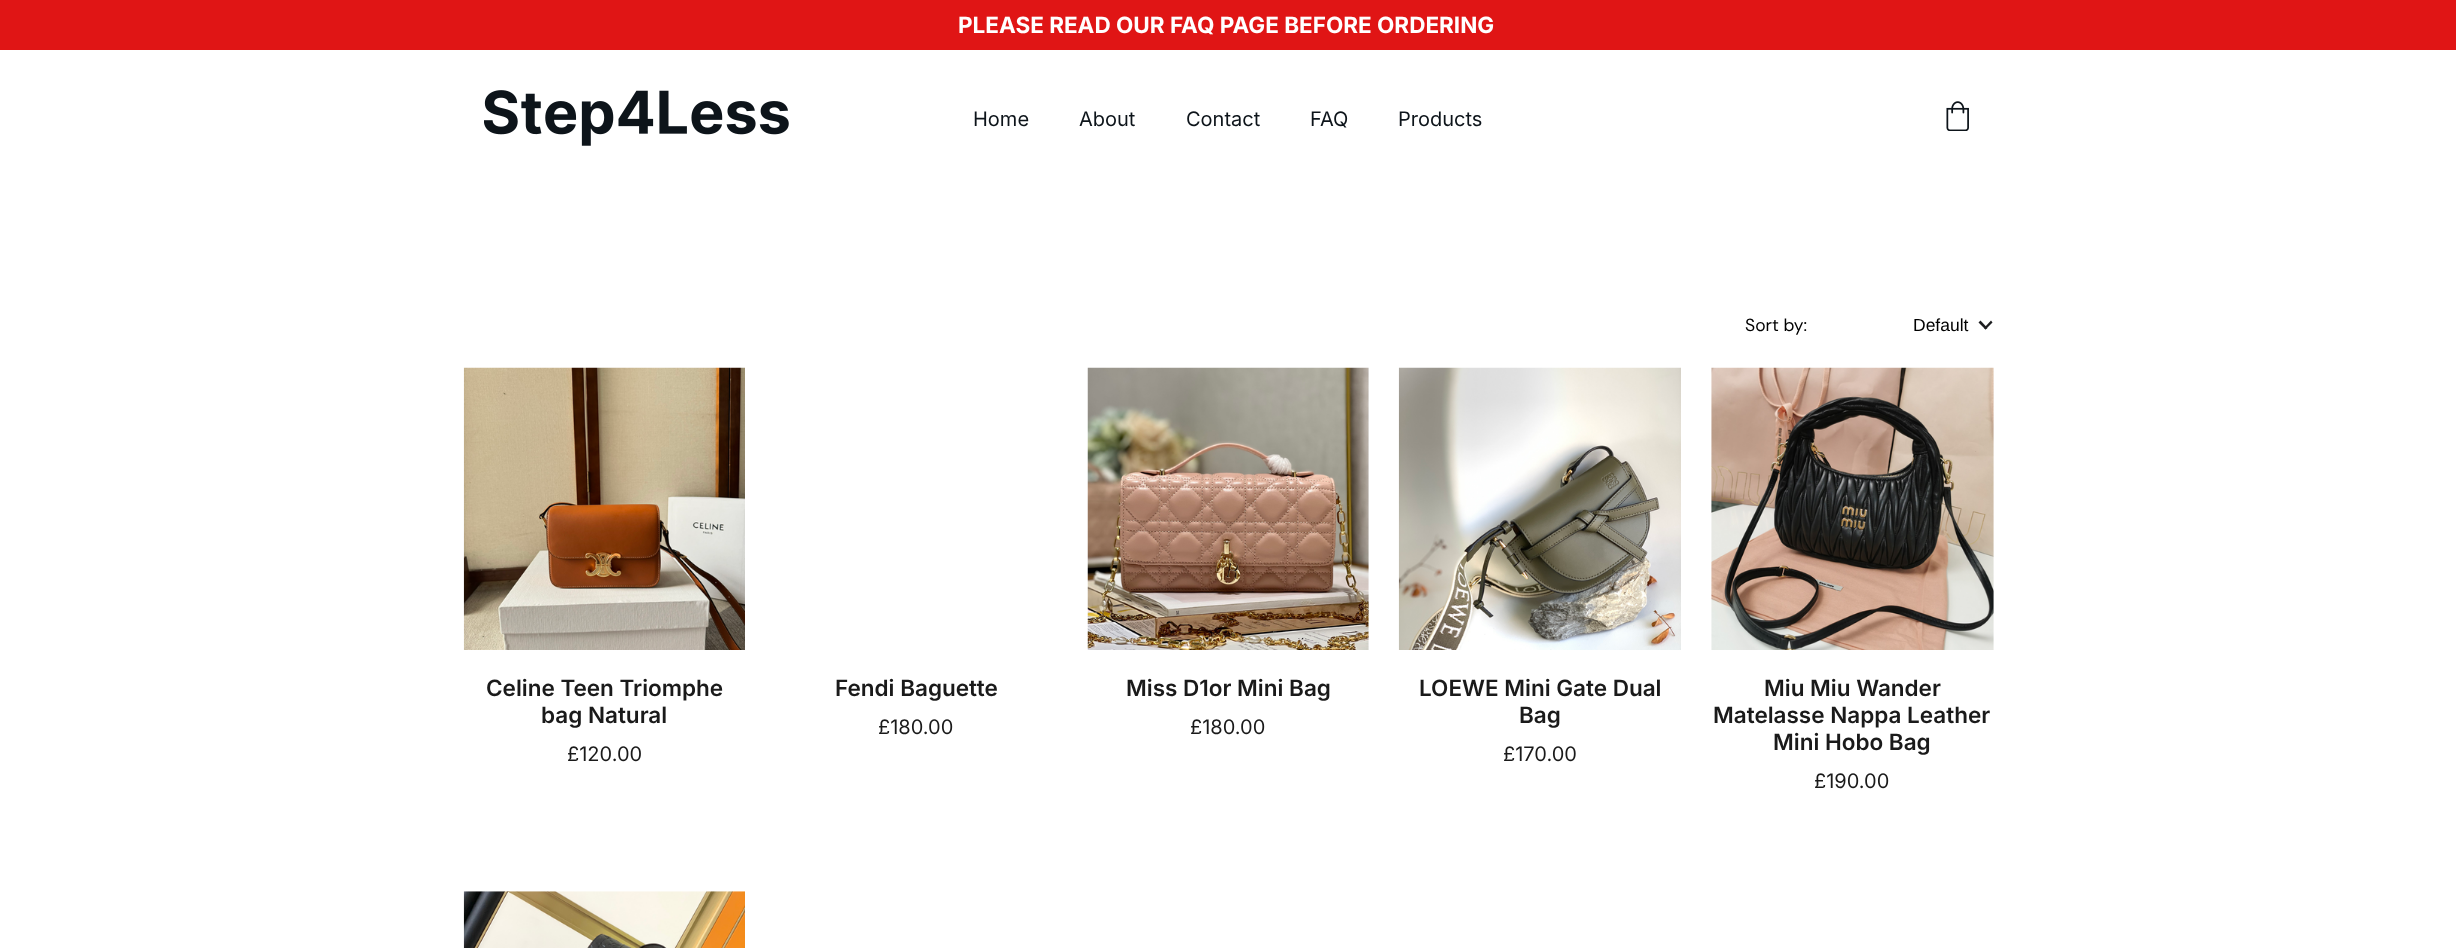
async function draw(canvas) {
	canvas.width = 2456;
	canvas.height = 948;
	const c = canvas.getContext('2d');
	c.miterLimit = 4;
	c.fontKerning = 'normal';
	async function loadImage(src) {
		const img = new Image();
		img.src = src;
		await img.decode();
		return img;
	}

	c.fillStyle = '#fff';
	c.fillRect(0, 0, 2456, 948);
	c.fillStyle = '#e01515';
	c.fillRect(0, 0, 2456, 50);
	c.font = 'bold 22.5px Inter';
	c.fillStyle = '#fff';
	c.fillText('PLEASE READ OUR FAQ PAGE BEFORE ORDERING', 958, 33);
	c.drawImage(await loadImage('img1.png'), 484, 90, 305, 56);
	c.font = '20px Inter';
	c.fillStyle = '#0d141a';
	for (const [text, x, y] of [
		['Home', 973, 126],
		['About', 1079, 126],
		['Contact', 1186, 126],
		['FAQ', 1310, 126],
		['Products', 1398, 126],
	]) {
		c.fillText(text, x, y);
	}
	c.drawImage(await loadImage('img2.png'), 1946, 101, 23, 30);
	c.font = '17.5px DM Sans';
	c.fillStyle = '#000';
	c.fillText('Sort by:', 1745, 331);
	c.font = '17.5px Liberation Sans';
	c.fillText('Default', 1913, 331);
	c.fillStyle = '#1d1e20';
	c.beginPath();
	c.moveTo(1991, 320.5);
	c.lineTo(1992.5, 322.5);
	c.lineTo(1985.5, 329.5);
	c.lineTo(1984, 328);
	c.closePath();
	c.fill();
	c.beginPath();
	c.moveTo(1980.5, 320.5);
	c.lineTo(1987.5, 328);
	c.lineTo(1985.5, 329.5);
	c.lineTo(1978.5, 322.5);
	c.closePath();
	c.fill();
	c.drawImage(await loadImage('img3.png'), 463, 367, 282, 283);
	c.font = '600 22.5px Inter';
	c.fillStyle = '#1a1a1a';
	c.fillText('Celine Teen Triomphe', 486, 696);
	c.fillText('bag Natural', 541, 723);
	c.font = '20px Inter';
	c.fillText('£120.00', 567, 761);
	c.font = '600 22.5px Inter';
	c.fillText('Fendi Baguette', 835, 696);
	c.font = '20px Inter';
	c.fillText('£180.00', 878, 734);
	c.drawImage(await loadImage('img4.png'), 1087, 367, 282, 283);
	c.font = '600 22.5px Inter';
	c.fillText('Miss D1or Mini Bag', 1126, 696);
	c.font = '20px Inter';
	c.fillText('£180.00', 1190, 734);
	c.drawImage(await loadImage('img5.png'), 1398, 367, 283, 283);
	c.font = '600 22.5px Inter';
	c.fillText('LOEWE Mini Gate Dual', 1419, 696);
	c.fillText('Bag', 1519, 723);
	c.font = '20px Inter';
	c.fillText('£170.00', 1503, 761);
	c.drawImage(await loadImage('img6.png'), 1711, 367, 283, 283);
	c.font = '600 22.5px Inter';
	for (const [text, x, y] of [
		['Miu Miu Wander', 1764, 696],
		['Matelasse Nappa Leather', 1713, 723],
		['Mini Hobo Bag', 1773, 750],
	]) {
		c.fillText(text, x, y);
	}
	c.font = '20px Inter';
	c.fillText('£190.00', 1814, 788);
	c.drawImage(await loadImage('img7.png'), 463, 891, 282, 57);
}

draw(document.querySelector('canvas'));
